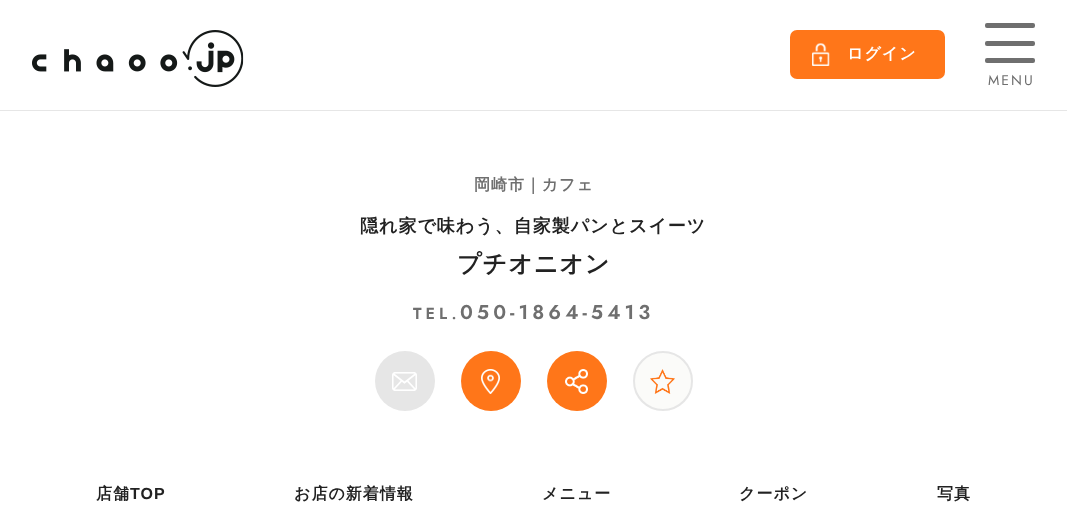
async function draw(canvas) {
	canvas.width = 1067;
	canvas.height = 519;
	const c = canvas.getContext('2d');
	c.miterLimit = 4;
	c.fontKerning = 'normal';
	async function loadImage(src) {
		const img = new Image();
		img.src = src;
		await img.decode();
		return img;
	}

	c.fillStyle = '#fff';
	c.fillRect(0, 0, 1067, 519);
	c.fillStyle = '#e6e6e6';
	c.fillRect(0, 110, 1067, 1);
	c.drawImage(await loadImage('img1.png'), 32, 30, 212, 57);
	c.fillStyle = '#ff7619';
	c.beginPath();
	c.roundRect(790, 30, 155, 49, 7);
	c.fill();
	c.drawImage(await loadImage('img2.png'), 812, 43, 18, 23);
	c.letterSpacing = '1px';
	c.font = 'bold 16px WenQuanYi Zen Hei';
	c.fillStyle = '#fff';
	c.fillText('ログイン', 847, 59);
	c.fillStyle = '#6f6f6f';
	c.beginPath();
	c.roundRect(985, 23, 50, 5, 2);
	c.fill();
	c.beginPath();
	c.roundRect(985, 41, 50, 5, 2);
	c.fill();
	c.beginPath();
	c.roundRect(985, 58, 50, 5, 2);
	c.fill();
	c.letterSpacing = '2px';
	c.font = '14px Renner';
	c.fillText('MENU', 988, 85);
	c.letterSpacing = '1px';
	c.font = 'bold 16px WenQuanYi Zen Hei';
	c.fillText('岡崎市｜カフェ', 474, 190);
	c.font = 'bold 18px WenQuanYi Zen Hei';
	c.fillStyle = '#222';
	c.fillText('隠れ家で味わう、自家製パンとスイーツ', 360, 232);
	c.font = 'bold 24px WenQuanYi Zen Hei';
	c.fillText('プチオニオン', 457, 272);
	c.letterSpacing = '4px';
	c.font = '600 16px Renner';
	c.fillStyle = '#6f6f6f';
	c.fillText('TEL.', 413, 319);
	c.font = '600 20px Renner';
	c.fillText('050-1864-5413', 460, 319);
	c.fillStyle = '#e6e6e6';
	c.beginPath();
	c.arc(405, 381, 30, 0, 2 * Math.PI);
	c.fill();
	c.drawImage(await loadImage('img3.png'), 392, 372, 25, 19);
	c.fillStyle = '#ff7619';
	c.beginPath();
	c.arc(491, 381, 30, 0, 2 * Math.PI);
	c.fill();
	c.drawImage(await loadImage('img4.png'), 481, 369, 19, 25);
	c.beginPath();
	c.arc(577, 381, 30, 0, 2 * Math.PI);
	c.fill();
	c.drawImage(await loadImage('img5.png'), 565, 369, 23, 25);
	c.fillStyle = '#fbfbf9';
	c.beginPath();
	c.arc(663, 381, 30, 0, 2 * Math.PI);
	c.fill();
	c.drawImage(await loadImage('img6.png'), 650, 369, 25, 25);
	c.beginPath();
	c.arc(663, 381, 29, 0, 2 * Math.PI);
	c.strokeStyle = '#e6e6e6';
	c.lineWidth = 2;
	c.stroke();
	c.letterSpacing = '1px';
	c.font = 'bold 16px WenQuanYi Zen Hei';
	c.fillStyle = '#222';
	c.fillText('店舗', 96, 499);
	c.font = 'bold 16px Liberation Sans';
	c.fillText('TOP', 130, 499);
	c.font = 'bold 16px WenQuanYi Zen Hei';
	for (const [text, x, y] of [
		['お店の新着情報', 294, 499],
		['メニュー', 542, 499],
		['クーポン', 739, 499],
		['写真', 937, 499],
	]) {
		c.fillText(text, x, y);
	}
}

draw(document.querySelector('canvas'));
